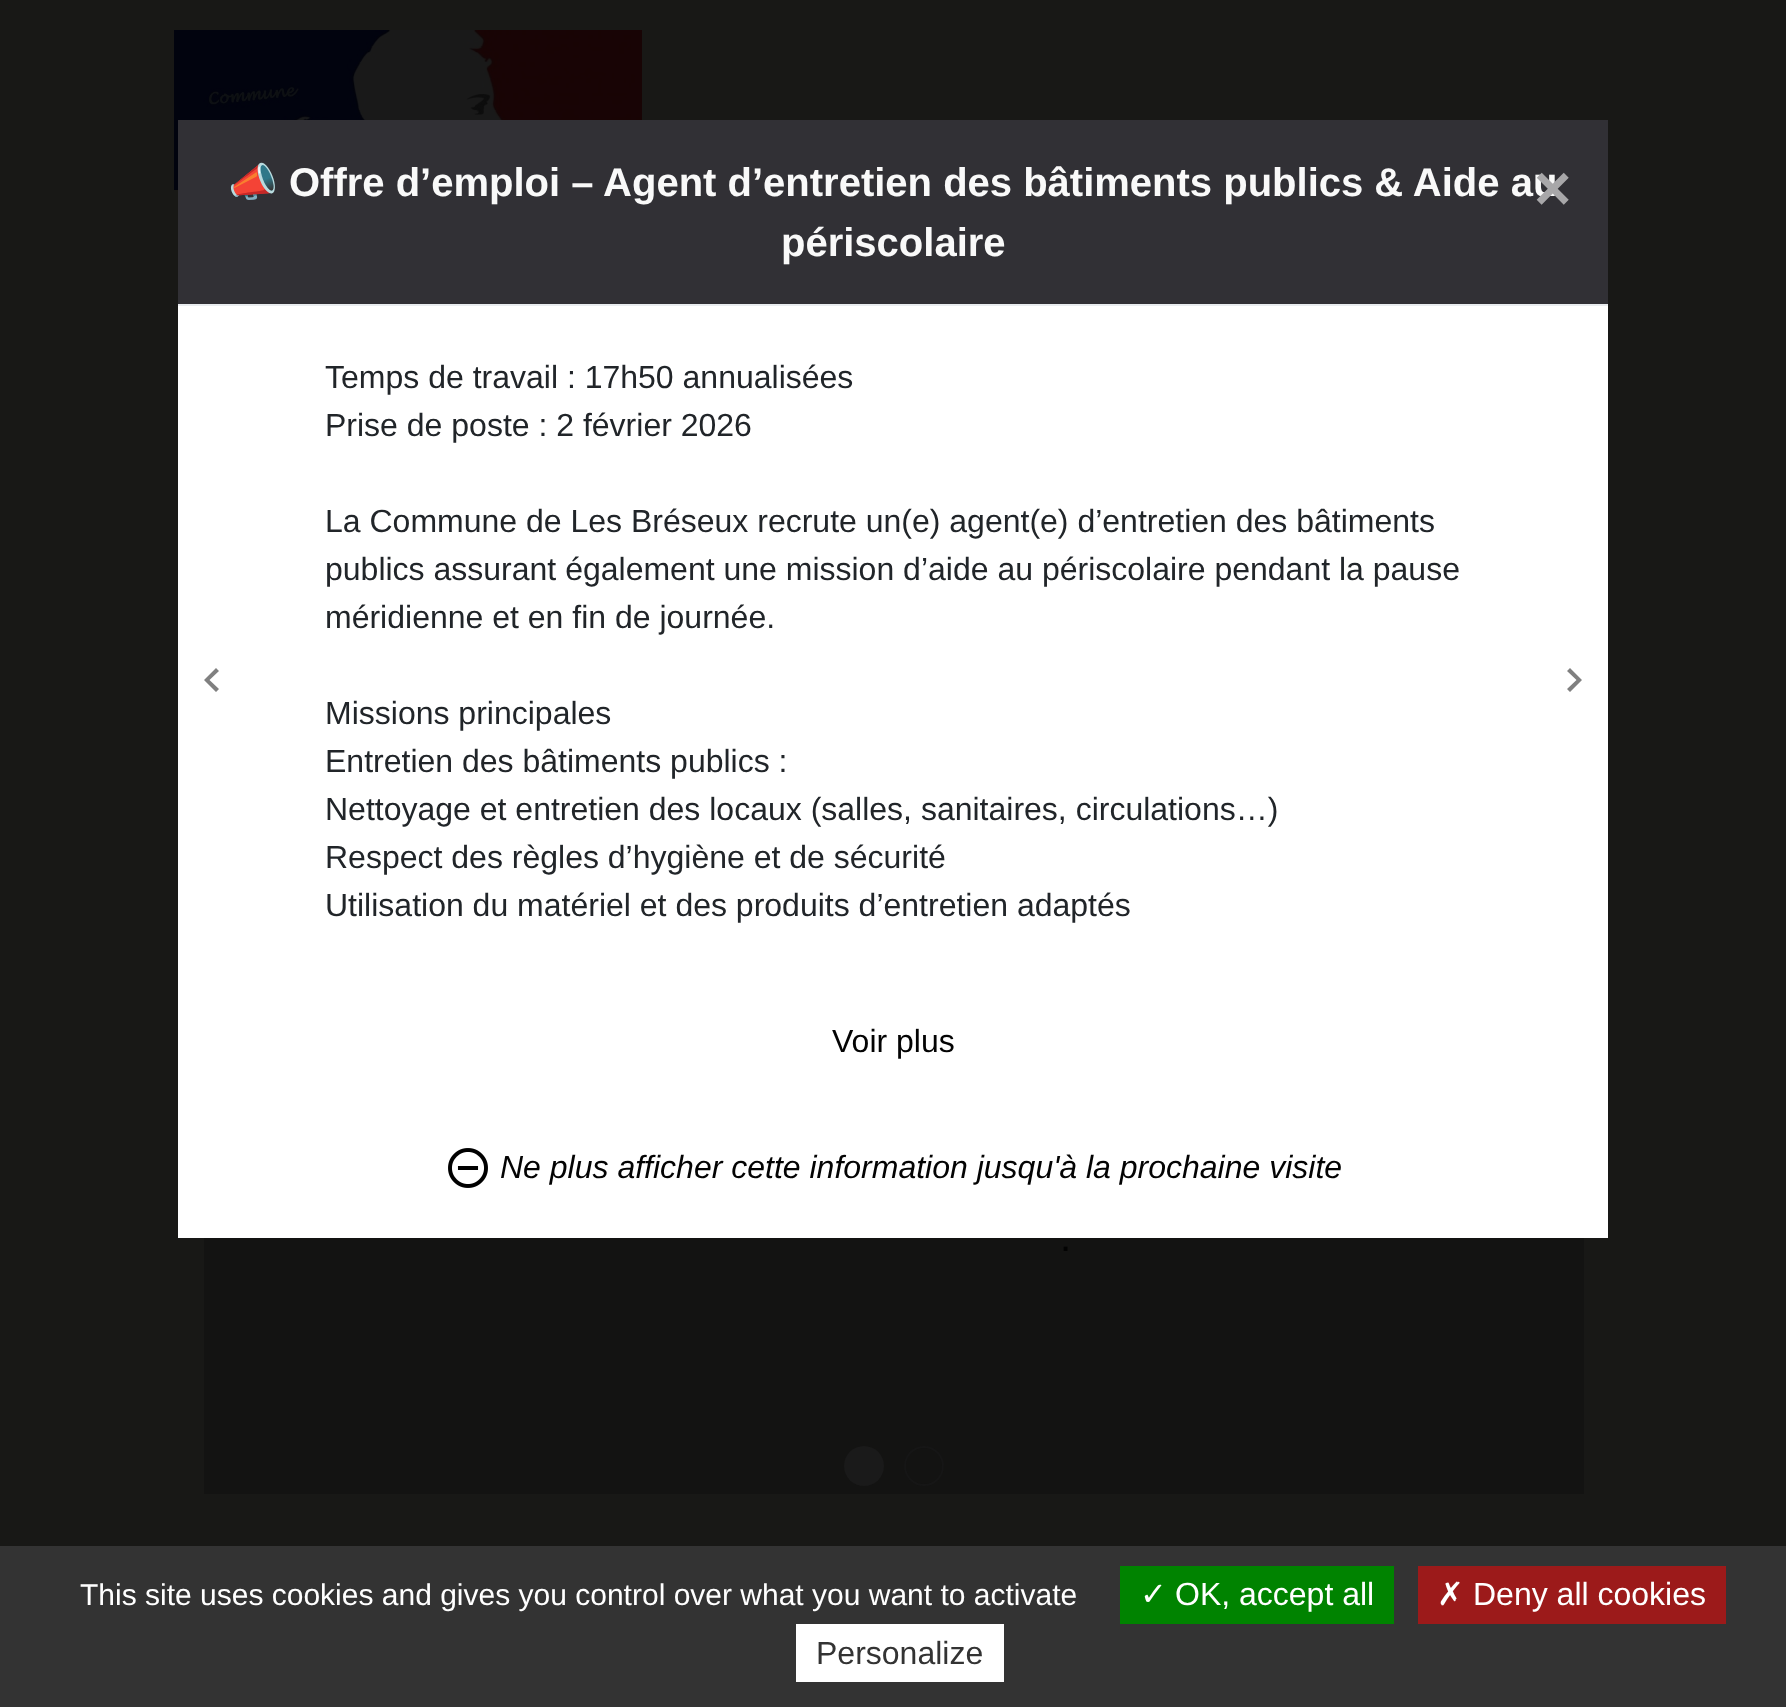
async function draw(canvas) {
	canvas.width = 1786;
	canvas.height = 1707;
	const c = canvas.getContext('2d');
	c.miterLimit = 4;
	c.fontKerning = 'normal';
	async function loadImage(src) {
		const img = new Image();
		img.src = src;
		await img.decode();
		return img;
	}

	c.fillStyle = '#181816';
	c.fillRect(0, 0, 1786, 1707);
	c.drawImage(await loadImage('img1.png'), 174, 30, 468, 160);
	c.fillStyle = '#fff';
	c.fillRect(178, 306, 1430, 932);
	c.fillStyle = '#808080';
	c.beginPath();
	c.moveTo(219, 671);
	c.lineTo(209.5, 680);
	c.lineTo(219, 689);
	c.lineTo(216, 692);
	c.lineTo(204, 680);
	c.lineTo(216, 668);
	c.closePath();
	c.fill();
	c.fillStyle = '#313035';
	c.fillRect(178, 120, 1430, 184);
	c.fillStyle = '#e9ecef';
	c.fillRect(178, 304, 1430, 2);
	c.font = 'bold 40px Noto Color Emoji';
	c.fillStyle = '#f9f9f9';
	c.fillText('📣', 228, 196);
	c.font = 'bold 40px Liberation Sans';
	c.fillText('Offre d’emploi – Agent d’entretien des bâtiments publics & Aide au', 289, 196);
	c.fillText('périscolaire', 781, 256);
	c.font = '32px Liberation Sans';
	c.fillStyle = '#212529';
	for (const [text, x, y] of [
		['Temps de travail : 17h50 annualisées', 325, 388],
		['Prise de poste : 2 février 2026', 325, 436],
		['La Commune de Les Bréseux recrute un(e) agent(e) d’entretien des bâtiments', 325, 532],
		['publics assurant également une mission d’aide au périscolaire pendant la pause', 325, 580],
		['méridienne et en fin de journée.', 325, 628],
		['Missions principales', 325, 724],
		['Entretien des bâtiments publics :', 325, 772],
		['Nettoyage et entretien des locaux (salles, sanitaires, circulations…)', 325, 820],
		['Respect des règles d’hygiène et de sécurité', 325, 868],
		['Utilisation du matériel et des produits d’entretien adaptés', 325, 916],
	]) {
		c.fillText(text, x, y);
	}
	c.fillStyle = '#030303';
	c.fillText('Voir plus', 832, 1052);
	c.drawImage(await loadImage('img2.png'), 448, 1148, 40, 40);
	c.font = 'italic 32px Liberation Sans';
	c.fillText('Ne plus afficher cette information jusqu\'à la prochaine visite', 500, 1178);
	c.fillStyle = '#808080';
	c.beginPath();
	c.moveTo(1570, 668);
	c.lineTo(1582, 680);
	c.lineTo(1570, 692);
	c.lineTo(1567, 689);
	c.lineTo(1576.5, 680);
	c.lineTo(1567, 671);
	c.closePath();
	c.fill();
	c.font = 'bold 64px Liberation Sans';
	c.fillStyle = '#a8a7a9';
	c.fillText('×', 1534, 210);
	c.fillStyle = '#131312';
	c.fillRect(204, 1238, 1380, 256);
	c.font = '40px Liberation Sans';
	c.fillStyle = '#030303';
	c.fillText('.', 1060, 1251);
	c.fillStyle = '#1a1a1a';
	c.beginPath();
	c.arc(864, 1466, 20, 0, 2 * Math.PI);
	c.fill();
	c.beginPath();
	c.arc(924, 1466, 19, 0, 2 * Math.PI);
	c.strokeStyle = '#161616';
	c.lineWidth = 2;
	c.stroke();
	c.fillStyle = '#333';
	c.fillRect(0, 1546, 1786, 161);
	c.font = '30px Liberation Sans';
	c.fillStyle = '#fff';
	c.fillText('This site uses cookies and gives you control over what you want to activate', 80, 1605);
	c.fillStyle = '#008300';
	c.fillRect(1120, 1566, 274, 58);
	c.font = '32px DejaVu Sans';
	c.fillStyle = '#fff';
	c.fillText('✓', 1140, 1605);
	c.font = '32px Liberation Sans';
	c.fillText('OK, accept all', 1175, 1605);
	c.fillStyle = '#9c1a1a';
	c.fillRect(1418, 1566, 308, 58);
	c.font = '32px DejaVu Sans';
	c.fillStyle = '#fff';
	c.fillText('✗', 1437, 1605);
	c.font = '32px Liberation Sans';
	c.fillText('Deny all cookies', 1473, 1605);
	c.fillRect(796, 1624, 208, 58);
	c.fillStyle = '#333';
	c.fillText('Personalize', 816, 1664);
}

draw(document.querySelector('canvas'));
